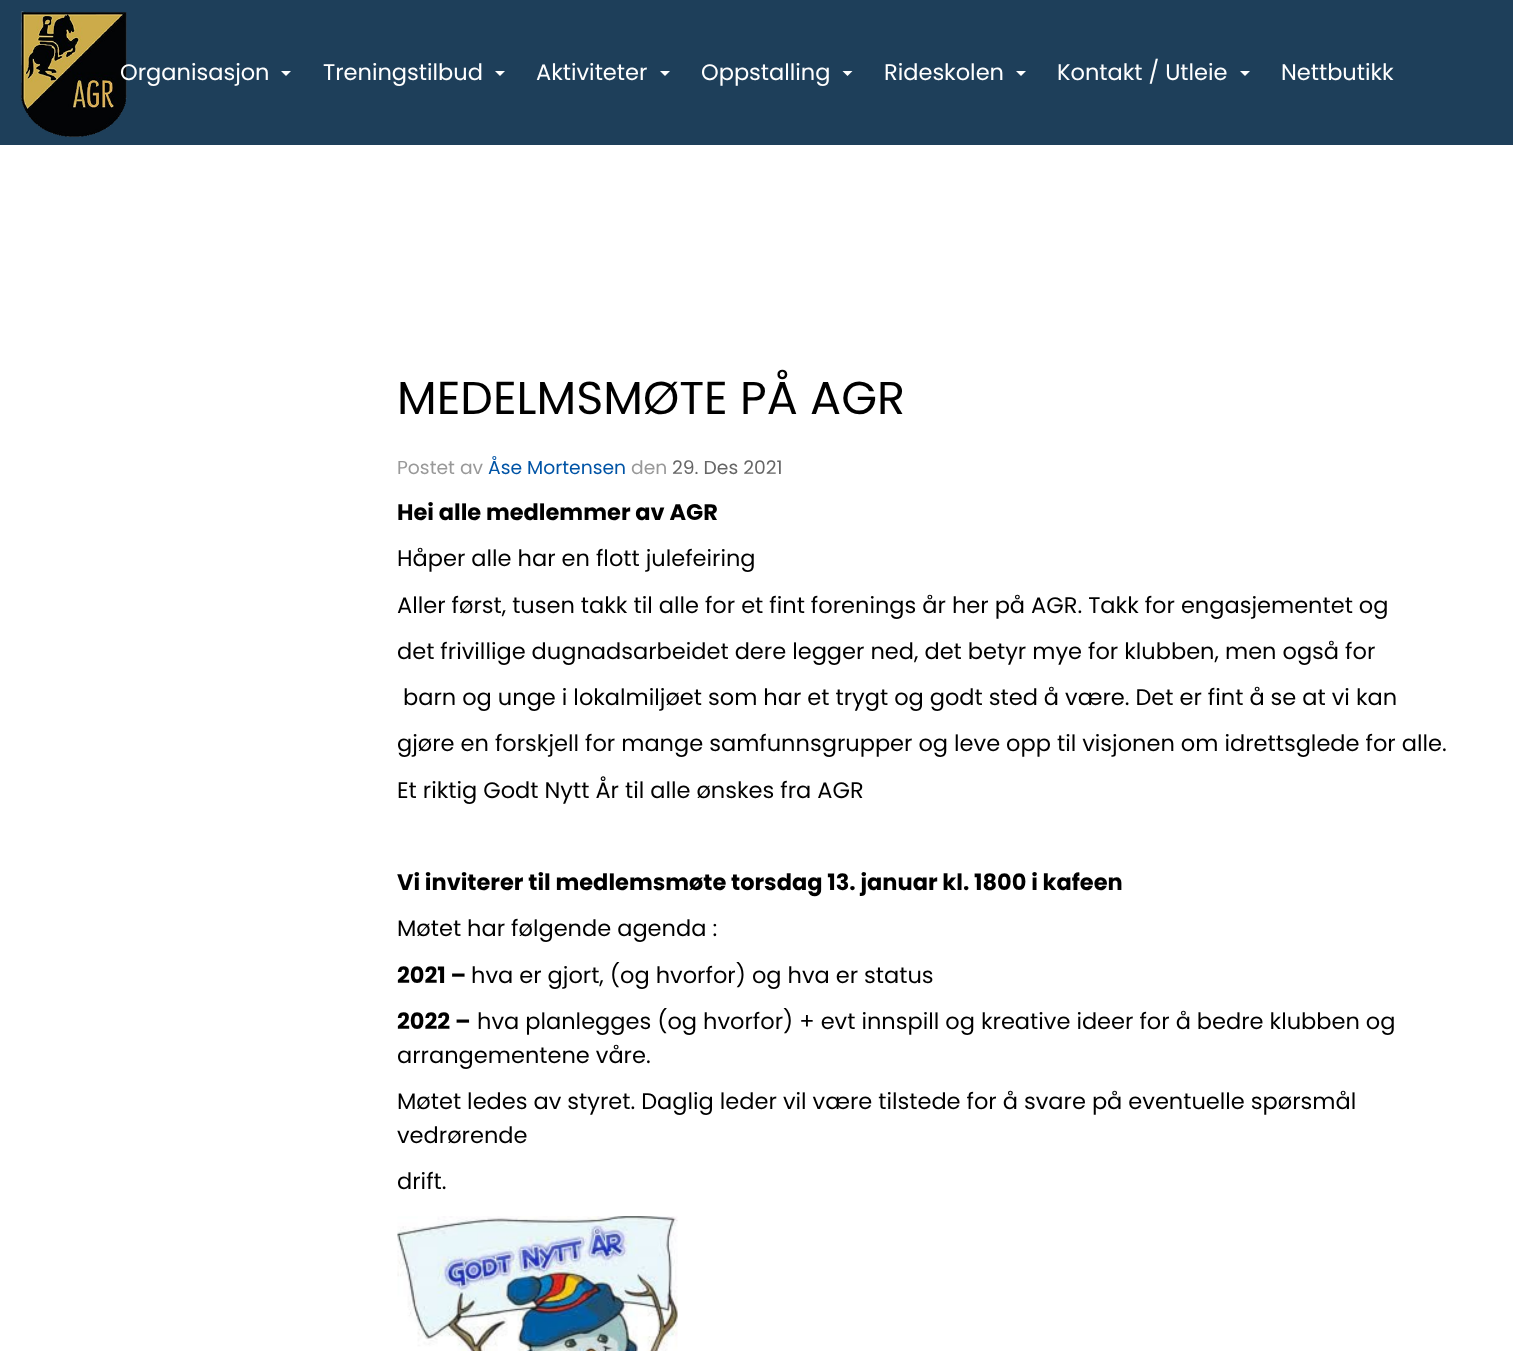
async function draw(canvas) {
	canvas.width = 1513;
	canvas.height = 1351;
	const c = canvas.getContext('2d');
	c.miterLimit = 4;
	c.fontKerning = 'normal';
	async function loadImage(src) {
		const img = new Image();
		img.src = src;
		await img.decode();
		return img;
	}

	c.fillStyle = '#fff';
	c.fillRect(0, 0, 1513, 1351);
	c.fillStyle = '#1e3f5a';
	c.fillRect(0, 0, 1513, 145);
	c.drawImage(await loadImage('img1.png'), 20, 11, 107, 126);
	c.font = '22.5px Poppins';
	c.fillStyle = '#fff';
	c.fillText('Organisasjon', 120, 80);
	c.beginPath();
	c.moveTo(281, 71);
	c.lineTo(291, 71);
	c.lineTo(286, 76);
	c.closePath();
	c.fill();
	c.fillText('Treningstilbud', 323, 80);
	c.beginPath();
	c.moveTo(495, 71);
	c.lineTo(505, 71);
	c.lineTo(500, 76);
	c.closePath();
	c.fill();
	c.fillText('Aktiviteter', 536, 80);
	c.beginPath();
	c.moveTo(660, 71);
	c.lineTo(670, 71);
	c.lineTo(665, 76);
	c.closePath();
	c.fill();
	c.fillText('Oppstalling', 701, 80);
	c.beginPath();
	c.moveTo(842.5, 71);
	c.lineTo(852.5, 71);
	c.lineTo(847.5, 76);
	c.closePath();
	c.fill();
	c.fillText('Rideskolen', 884, 80);
	c.beginPath();
	c.moveTo(1016, 71);
	c.lineTo(1026, 71);
	c.lineTo(1021, 76);
	c.closePath();
	c.fill();
	c.fillText('Kontakt / Utleie', 1057, 80);
	c.beginPath();
	c.moveTo(1240, 71);
	c.lineTo(1250, 71);
	c.lineTo(1245, 76);
	c.closePath();
	c.fill();
	c.fillText('Nettbutikk', 1281, 80);
	c.font = '46.1px Poppins';
	c.fillStyle = '#000';
	c.fillText('MEDELMSMØTE PÅ AGR', 397, 414);
	c.font = '18.75px Poppins';
	c.fillStyle = '#999';
	c.fillText('Postet av', 397, 474);
	c.fillStyle = '#0054a6';
	c.fillText('Åse Mortensen', 488, 474);
	c.fillStyle = '#999';
	c.fillText('den', 631, 474);
	c.fillStyle = '#666';
	c.fillText('29. Des 2021', 672, 474);
	c.font = 'bold 22.5px Poppins';
	c.fillStyle = '#000';
	c.fillText('Hei alle medlemmer av AGR', 397, 520);
	c.font = '22.5px Poppins';
	for (const [text, x, y] of [
		['Håper alle har en flott julefeiring', 397, 566],
		['Aller først, tusen takk til alle for et fint forenings år her på AGR. Takk for engasjementet og', 397, 613],
		['det frivillige dugnadsarbeidet dere legger ned, det betyr mye for klubben, men også for', 397, 659],
		['barn og unge i lokalmiljøet som har et trygt og godt sted å være. Det er fint å se at vi kan', 403, 705],
		['gjøre en forskjell for mange samfunnsgrupper og leve opp til visjonen om idrettsglede for alle.', 397, 751],
		['Et riktig Godt Nytt År til alle ønskes fra AGR', 397, 798],
	]) {
		c.fillText(text, x, y);
	}
	c.font = 'bold 22.5px Poppins';
	c.fillText('Vi inviterer til medlemsmøte torsdag 13. januar kl. 1800 i kafeen', 397, 890);
	c.font = '22.5px Poppins';
	c.fillText('Møtet har følgende agenda :', 397, 936);
	c.font = 'bold 22.5px Poppins';
	c.fillText('2021 –', 397, 983);
	c.font = '22.5px Poppins';
	c.fillText('hva er gjort, (og hvorfor) og hva er status', 471, 983);
	c.font = 'bold 22.5px Poppins';
	c.fillText('2022 –', 397, 1029);
	c.font = '22.5px Poppins';
	for (const [text, x, y] of [
		['hva planlegges (og hvorfor) + evt innspill og kreative ideer for å bedre klubben og', 477, 1029],
		['arrangementene våre.', 397, 1063],
		['Møtet ledes av styret. Daglig leder vil være tilstede for å svare på eventuelle spørsmål', 397, 1109],
		['vedrørende', 397, 1143],
		['drift.', 397, 1189],
	]) {
		c.fillText(text, x, y);
	}
	c.drawImage(await loadImage('img2.png'), 397, 1216, 281, 135);
}

draw(document.querySelector('canvas'));
